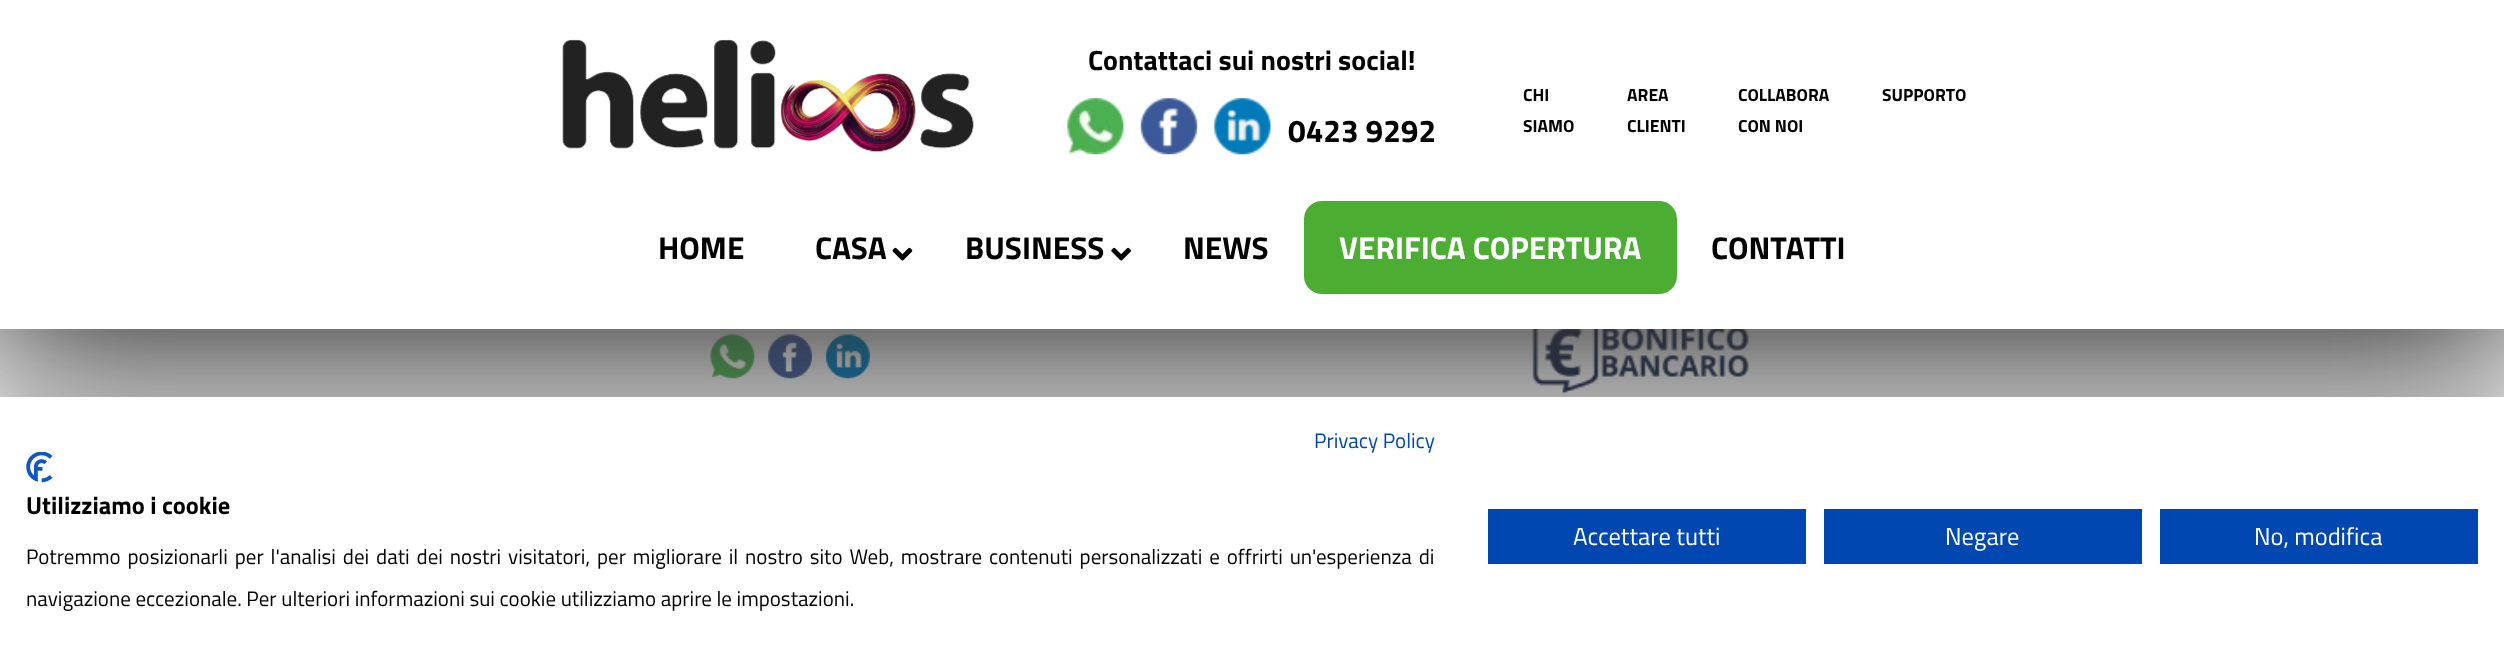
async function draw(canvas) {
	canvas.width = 2504;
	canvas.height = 666;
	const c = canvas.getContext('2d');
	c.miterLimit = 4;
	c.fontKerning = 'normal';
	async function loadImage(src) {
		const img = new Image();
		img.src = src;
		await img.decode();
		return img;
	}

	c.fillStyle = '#f2f2f2';
	c.fillRect(0, 0, 2504, 666);
	c.drawImage(await loadImage('img7.png'), 710, 334, 45, 45);
	c.drawImage(await loadImage('img8.png'), 768, 334, 44, 45);
	c.drawImage(await loadImage('img9.png'), 826, 334, 44, 45);
	c.drawImage(await loadImage('img10.png'), 1532, 329, 217, 66);
	c.fillStyle = '#333';
	c.filter = 'blur(79px)';
	c.beginPath();
	c.rect(-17, 0, 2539, 364);
	c.fill();
	c.filter = 'none';
	c.fillStyle = '#fff';
	c.fillRect(0, 0, 2504, 329);
	c.drawImage(await loadImage('img1.png'), 562, 39, 412, 114);
	c.font = 'bold 28px Titillium Web';
	c.fillStyle = '#000';
	c.fillText('Contattaci sui nostri social!', 1088, 70);
	c.drawImage(await loadImage('img2.png'), 1067, 98, 58, 57);
	c.drawImage(await loadImage('img3.png'), 1140, 98, 58, 57);
	c.drawImage(await loadImage('img4.png'), 1214, 98, 58, 57);
	c.font = 'bold 31.5px Titillium Web';
	c.fillText('0423 9292', 1288, 142);
	c.font = 'bold 17.5px Titillium Web';
	for (const [text, x, y] of [
		['CHI', 1523, 101],
		['SIAMO', 1523, 132],
		['AREA', 1627, 101],
		['CLIENTI', 1627, 132],
		['COLLABORA', 1738, 101],
		['CON NOI', 1738, 132],
		['SUPPORTO', 1882, 101],
	]) {
		c.fillText(text, x, y);
	}
	c.font = 'bold 31.5px Titillium Web';
	c.fillText('HOME', 658, 259);
	c.fillText('CASA', 815, 259);
	c.drawImage(await loadImage('img5.png'), 892, 247, 21, 14);
	c.fillText('BUSINESS', 965, 259);
	c.drawImage(await loadImage('img6.png'), 1111, 247, 20, 14);
	c.fillText('NEWS', 1183, 259);
	c.fillStyle = '#4bae32';
	c.beginPath();
	c.roundRect(1304, 201, 373, 93, 18);
	c.fill();
	c.fillStyle = '#fff';
	c.fillText('VERIFICA COPERTURA', 1339, 259);
	c.fillStyle = '#000';
	c.fillText('CONTATTI', 1711, 259);
	c.fillStyle = '#0000001a';
	c.filter = 'blur(21px)';
	c.beginPath();
	c.rect(0, 397, 2504, 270);
	c.fill();
	c.filter = 'none';
	c.fillStyle = '#fff';
	c.fillRect(0, 397, 2504, 269);
	c.font = '21px Titillium Web';
	c.fillStyle = '#0047b2';
	c.fillText('Privacy Policy', 1314, 448);
	c.drawImage(await loadImage('img11.png'), 26, 452, 27, 31);
	c.font = 'bold 24.5px Titillium Web';
	c.fillStyle = '#000';
	c.fillText('Utilizziamo i cookie', 26, 514);
	c.wordSpacing = '2.3px';
	c.font = '21px Titillium Web';
	c.fillText('Potremmo posizionarli per l\'analisi dei dati dei nostri visitatori, per migliorare il nostro sito Web, mostrare contenuti personalizzati e offrirti un\'esperienza di', 26, 564);
	c.wordSpacing = '0px';
	c.fillText('navigazione eccezionale. Per ulteriori informazioni sui cookie utilizziamo aprire le impostazioni.', 26, 606);
	c.fillStyle = '#0047b2';
	c.fillRect(1488, 509, 318, 55);
	c.font = '24.5px Titillium Web';
	c.fillStyle = '#fff';
	c.fillText('Accettare tutti', 1573, 545);
	c.fillStyle = '#0047b2';
	c.fillRect(1824, 509, 318, 55);
	c.fillStyle = '#fff';
	c.fillText('Negare', 1945, 545);
	c.fillStyle = '#0047b2';
	c.fillRect(2160, 509, 318, 55);
	c.fillStyle = '#fff';
	c.fillText('No, modifica', 2254, 545);
}

draw(document.querySelector('canvas'));
